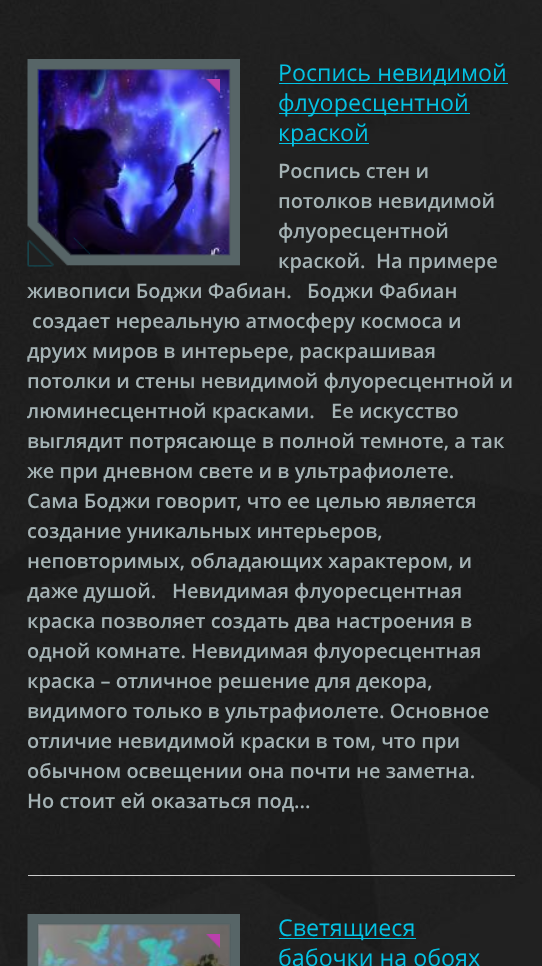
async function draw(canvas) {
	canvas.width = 542;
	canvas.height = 966;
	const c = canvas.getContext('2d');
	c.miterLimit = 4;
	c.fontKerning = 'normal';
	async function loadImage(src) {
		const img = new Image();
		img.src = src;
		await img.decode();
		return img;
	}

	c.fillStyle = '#fff';
	c.fillRect(0, 0, 542, 966);
	c.drawImage(await loadImage('img1.png'), 0, 0, 542, 966);
	c.fillStyle = '#ccc';
	c.fillRect(28, 875, 487, 1);
	c.drawImage(await loadImage('img3.png'), 37, 69, 193, 187);
	c.drawImage(await loadImage('img2.png'), 27, 59, 213, 207);
	c.drawImage(await loadImage('img4.png'), 206, 79, 14, 14);
	c.drawImage(await loadImage('img5.png'), 27, 240, 27, 27);
	c.fillStyle = '#04c2e4';
	c.fillRect(279, 83, 229, 1);
	c.font = '23.25px Open Sans';
	c.fillText('Роспись невидимой', 278, 81);
	c.fillRect(279, 113, 191, 1);
	c.fillText('флуоресцентной', 278, 111);
	c.fillRect(279, 143, 90, 1);
	c.fillText('краской', 278, 141);
	c.font = '600 20px Open Sans';
	c.fillStyle = '#a5b3b5';
	for (const [text, x, y] of [
		['Роспись стен и', 278, 178],
		['потолков невидимой', 278, 208],
		['флуоресцентной', 278, 238],
		['краской.', 278, 268],
		['На примере', 376, 268],
		['живописи Боджи Фабиан.', 27, 298],
		['Боджи Фабиан', 307, 298],
		['создает нереальную атмосферу космоса и', 32, 328],
		['друих миров в интерьере, раскрашивая', 27, 358],
		['потолки и стены невидимой флуоресцентной и', 27, 388],
		['люминесцентной красками.', 27, 418],
		['Ее искусство', 331, 418],
		['выглядит потрясающе в полной темноте, а так', 27, 448],
		['же при дневном свете и в ультрафиолете.', 27, 478],
		['Сама Боджи говорит, что ее целью является', 27, 508],
		['создание уникальных интерьеров,', 27, 538],
		['неповторимых, обладающих характером, и', 27, 568],
		['даже душой.', 27, 598],
		['Невидимая флуоресцентная', 172, 598],
		['краска позволяет создать два настроения в', 27, 628],
		['одной комнате. Невидимая флуоресцентная', 27, 658],
		['краска – отличное решение для декора,', 27, 688],
		['видимого только в ультрафиолете. Основное', 27, 718],
		['отличие невидимой краски в том, что при', 27, 748],
		['обычном освещении она почти не заметна.', 27, 778],
		['Но стоит ей оказаться под...', 27, 808],
	]) {
		c.fillText(text, x, y);
	}
	c.drawImage(await loadImage('img7.png'), 37, 924, 193, 42);
	c.drawImage(await loadImage('img6.png'), 27, 914, 213, 52);
	c.drawImage(await loadImage('img8.png'), 206, 934, 14, 14);
	c.fillStyle = '#04c2e4';
	c.fillRect(279, 938, 137, 1);
	c.font = '23.25px Open Sans';
	c.fillText('Светящиеся', 278, 936);
	c.fillText('бабочки на обоях', 278, 966);
}

draw(document.querySelector('canvas'));
